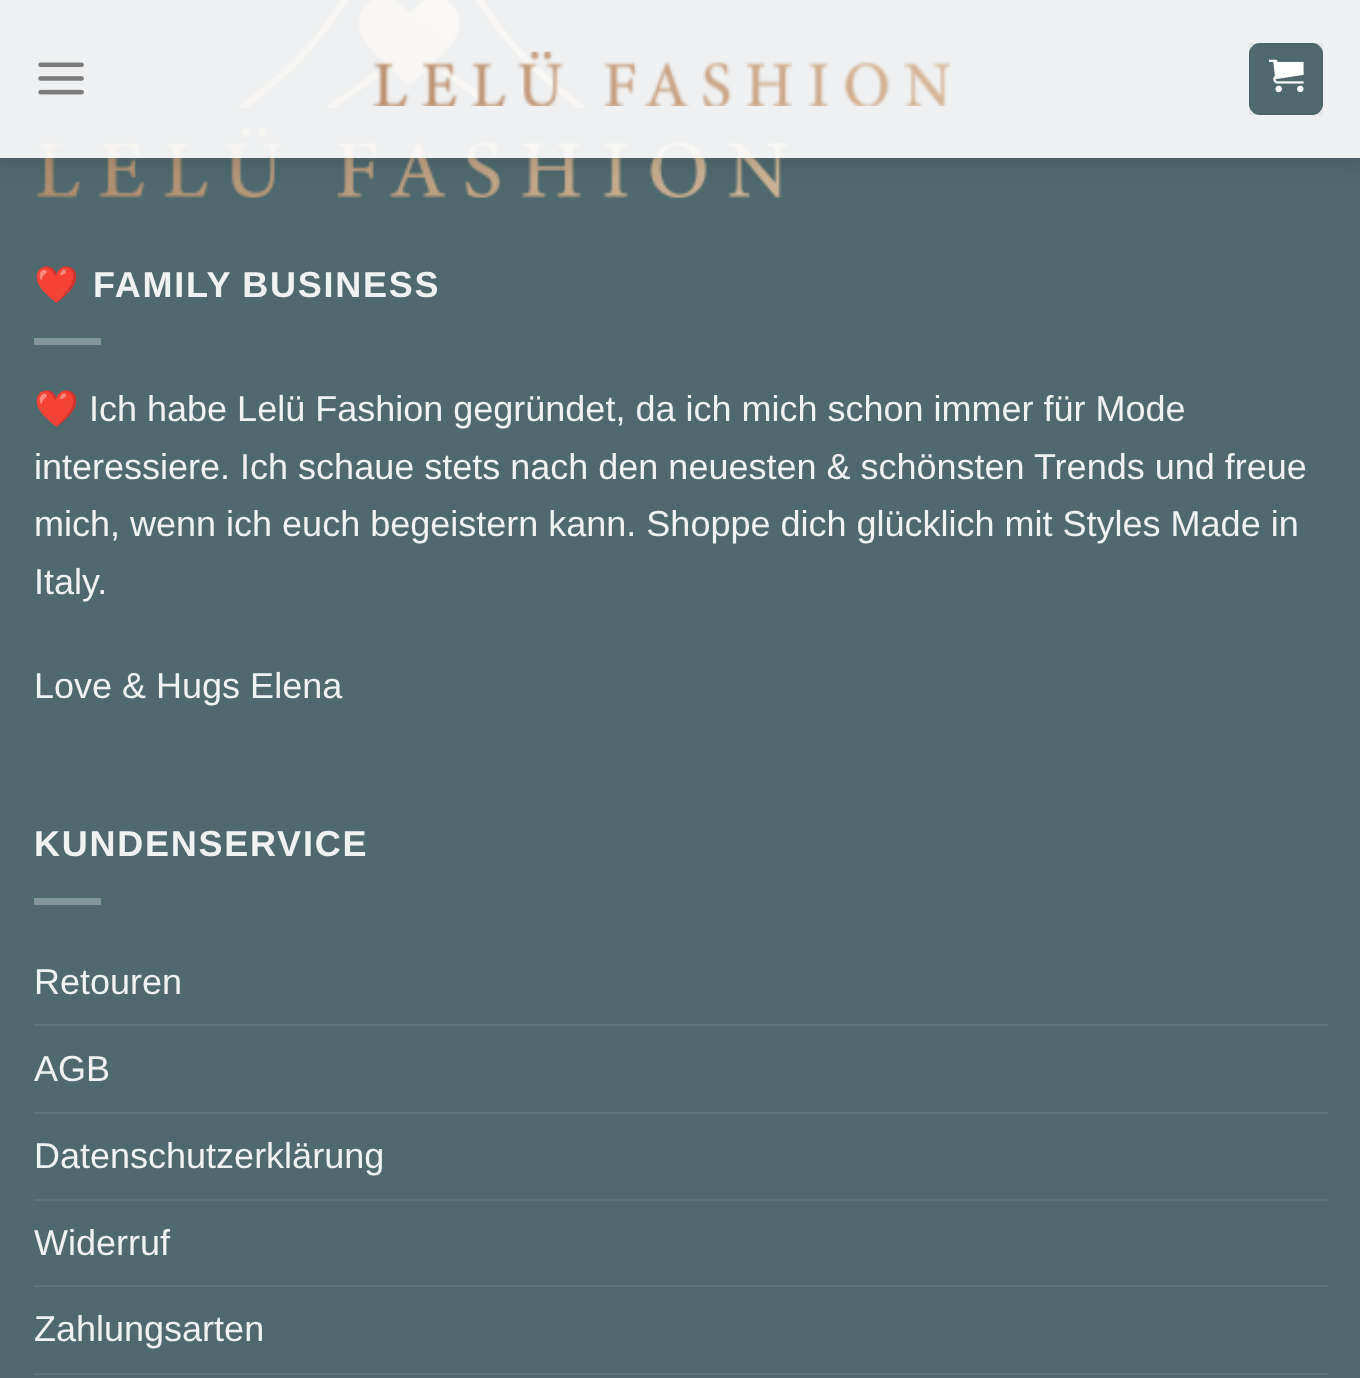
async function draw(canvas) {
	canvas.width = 1360;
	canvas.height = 1378;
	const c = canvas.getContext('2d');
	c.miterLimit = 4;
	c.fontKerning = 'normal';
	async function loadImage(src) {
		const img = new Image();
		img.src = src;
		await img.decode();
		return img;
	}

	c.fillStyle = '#4f696e';
	c.fillRect(0, 0, 1360, 1378);
	c.drawImage(await loadImage('img4.png'), 35, 0, 753, 199);
	c.save();
	c.beginPath();
	c.moveTo(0, 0);
	c.lineTo(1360, 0);
	c.lineTo(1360, 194);
	c.lineTo(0, 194);
	c.closePath();
	c.moveTo(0, 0);
	c.lineTo(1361, 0);
	c.lineTo(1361, 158);
	c.lineTo(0, 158);
	c.closePath();
	c.clip('evenodd');
	c.fillStyle = '#00000026';
	c.filter = 'blur(11px)';
	c.beginPath();
	c.rect(2, 2, 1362, 158);
	c.fill();
	c.filter = 'none';
	c.restore();
	c.fillStyle = '#ffffffe6';
	c.fillRect(0, 0, 1360, 158);
	c.drawImage(await loadImage('img1.png'), 38, 62, 46, 33);
	c.drawImage(await loadImage('img2.png'), 372, 51, 579, 55);
	c.fillStyle = '#4f696e';
	c.beginPath();
	c.roundRect(1249, 43, 74, 72, 11);
	c.fill();
	c.strokeStyle = '#0000000d';
	c.lineWidth = 2;
	c.strokeRect(1250, 44, 72, 70);
	c.drawImage(await loadImage('img3.png'), 1269, 59, 35, 34);
	c.fillStyle = '#7777771a';
	c.fillRect(34, 158, 1294, 2);
	c.letterSpacing = '1.75px';
	c.font = 'bold 36px Noto Color Emoji';
	c.fillStyle = '#f1f1f1';
	c.fillText('❤️', 34, 297);
	c.wordSpacing = '-1px';
	c.font = 'bold 36px Liberation Sans';
	c.fillText('FAMILY BUSINESS', 93, 297);
	c.fillStyle = '#84969a';
	c.fillRect(34, 338, 67, 7);
	c.letterSpacing = '0px';
	c.wordSpacing = '0px';
	c.font = '36px Noto Color Emoji';
	c.fillStyle = '#f1f1f1';
	c.fillText('❤️', 34, 421);
	c.font = '36px Liberation Sans';
	for (const [text, x, y] of [
		['Ich habe Lelü Fashion gegründet, da ich mich schon immer für Mode', 89, 421],
		['interessiere. Ich schaue stets nach den neuesten & schönsten Trends und freue', 34, 479],
		['mich, wenn ich euch begeistern kann. Shoppe dich glücklich mit Styles Made in', 34, 536],
		['Italy.', 34, 594],
		['Love & Hugs Elena', 34, 698],
	]) {
		c.fillText(text, x, y);
	}
	c.letterSpacing = '1.75px';
	c.font = 'bold 36px Liberation Sans';
	c.fillText('KUNDENSERVICE', 34, 856);
	c.fillStyle = '#84969a';
	c.fillRect(34, 898, 67, 7);
	c.letterSpacing = '0px';
	c.font = '36px Liberation Sans';
	c.fillStyle = '#f1f1f1';
	c.fillText('Retouren', 34, 994);
	c.fillStyle = '#5d757a';
	c.fillRect(34, 1024, 1294, 2);
	c.fillStyle = '#f1f1f1';
	c.fillText('AGB', 34, 1081);
	c.fillStyle = '#5d757a';
	c.fillRect(34, 1112, 1294, 2);
	c.fillStyle = '#f1f1f1';
	c.fillText('Datenschutzerklärung', 34, 1168);
	c.fillStyle = '#5d757a';
	c.fillRect(34, 1199, 1294, 2);
	c.fillStyle = '#f1f1f1';
	c.fillText('Widerruf', 34, 1255);
	c.fillStyle = '#5d757a';
	c.fillRect(34, 1285, 1294, 2);
	c.fillStyle = '#f1f1f1';
	c.fillText('Zahlungsarten', 34, 1341);
	c.fillStyle = '#5d757a';
	c.fillRect(34, 1373, 1294, 2);
}

draw(document.querySelector('canvas'));
